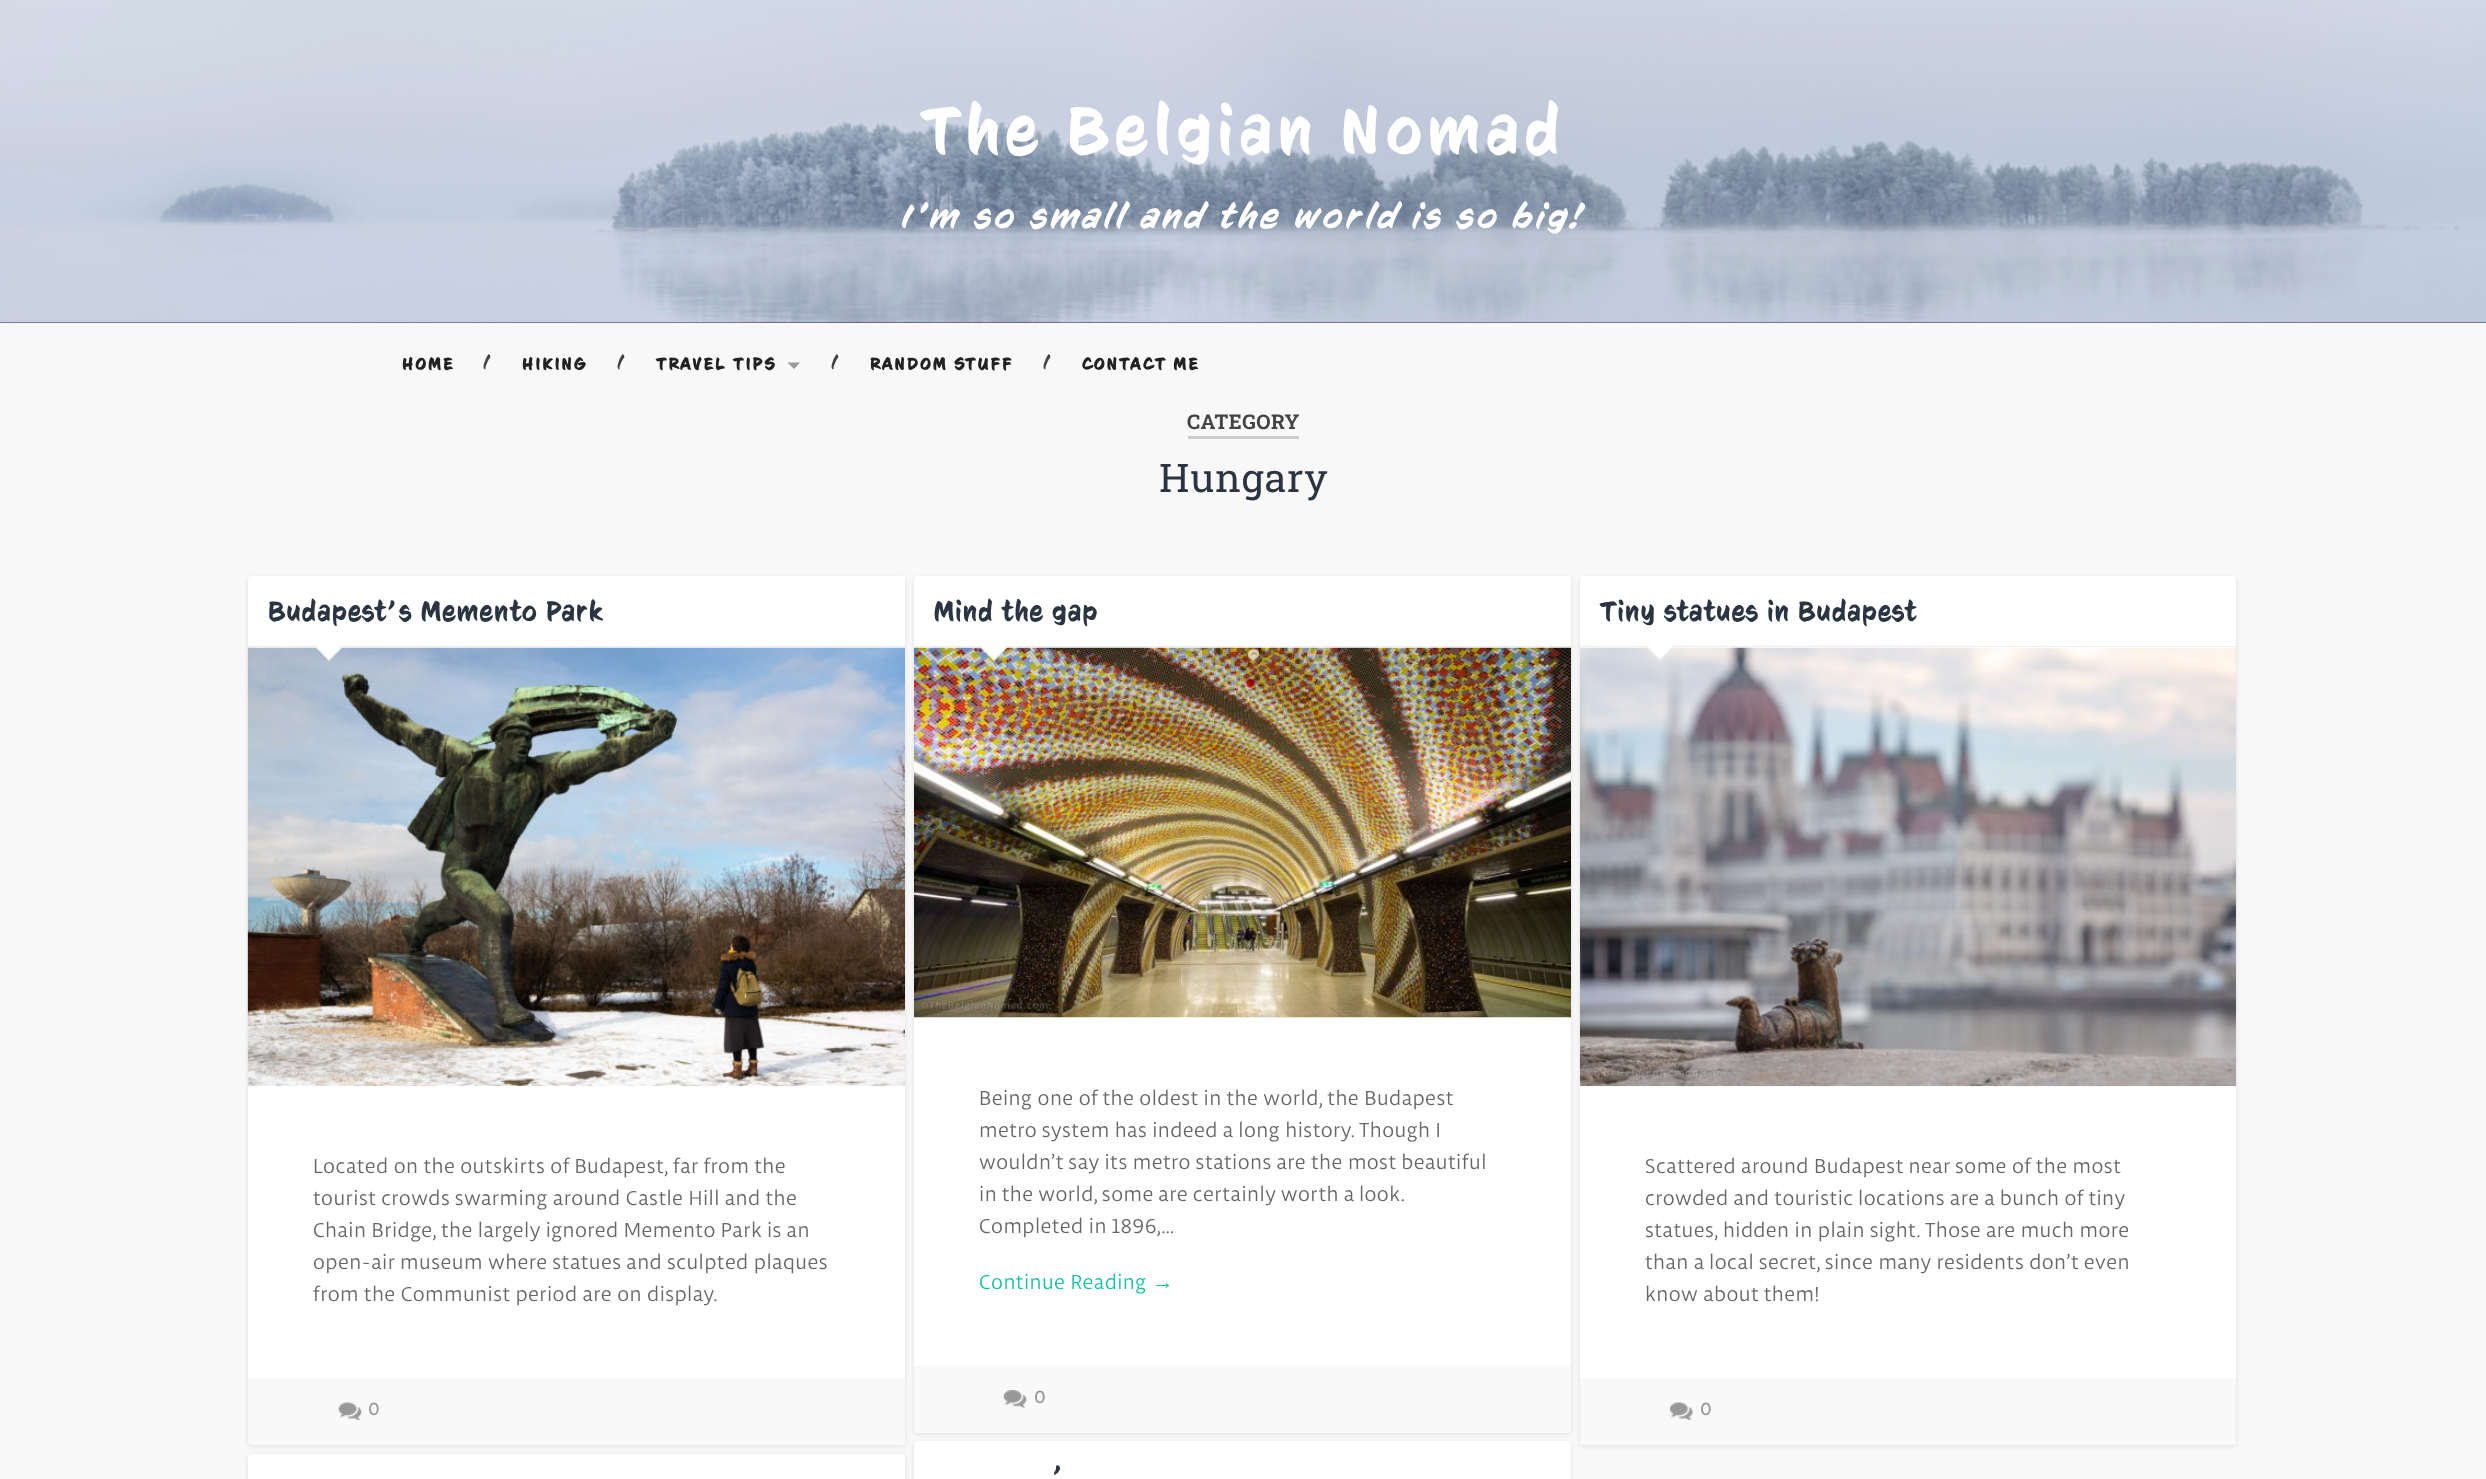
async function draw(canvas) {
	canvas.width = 2486;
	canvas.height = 1479;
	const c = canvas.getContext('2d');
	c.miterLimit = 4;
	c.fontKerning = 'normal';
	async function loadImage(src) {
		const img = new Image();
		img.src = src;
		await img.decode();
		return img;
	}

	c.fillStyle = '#f8f8f8';
	c.fillRect(0, 0, 2486, 1479);
	c.fillStyle = '#282828';
	c.fillRect(0, 322, 2486, 1);
	c.drawImage(await loadImage('img1.png'), 0, 0, 2486, 323);
	c.letterSpacing = '6.75px';
	c.font = '67.5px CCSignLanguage';
	c.fillStyle = '#fff';
	c.fillText('The Belgian Nomad', 921, 154);
	c.letterSpacing = '3.4px';
	c.font = 'italic 33.75px CCSignLanguage';
	c.fillText('I\'m so small and the world is so big!', 901, 228);
	c.letterSpacing = '2.5px';
	c.font = 'bold 17.25px CCSignLanguage';
	c.fillStyle = '#222';
	c.fillText('HOME', 402, 370);
	c.letterSpacing = '1px';
	c.font = '20px CCSignLanguage';
	c.fillStyle = '#444';
	c.fillText('/', 482, 369);
	c.letterSpacing = '2.5px';
	c.font = 'bold 17.25px CCSignLanguage';
	c.fillStyle = '#222';
	c.fillText('HIKING', 522, 370);
	c.letterSpacing = '1px';
	c.font = '20px CCSignLanguage';
	c.fillStyle = '#444';
	c.fillText('/', 616, 369);
	c.letterSpacing = '2.5px';
	c.font = 'bold 17.25px CCSignLanguage';
	c.fillStyle = '#222';
	c.fillText('TRAVEL TIPS', 656, 370);
	c.fillStyle = '#999';
	c.beginPath();
	c.moveTo(787.5, 362.5);
	c.lineTo(800, 362.5);
	c.lineTo(794, 369);
	c.closePath();
	c.fill();
	c.letterSpacing = '1px';
	c.font = '20px CCSignLanguage';
	c.fillStyle = '#444';
	c.fillText('/', 830, 369);
	c.letterSpacing = '2.5px';
	c.font = 'bold 17.25px CCSignLanguage';
	c.fillStyle = '#222';
	c.fillText('RANDOM STUFF', 870, 370);
	c.letterSpacing = '1px';
	c.font = '20px CCSignLanguage';
	c.fillStyle = '#444';
	c.fillText('/', 1042, 369);
	c.letterSpacing = '2.5px';
	c.font = 'bold 17.25px CCSignLanguage';
	c.fillStyle = '#222';
	c.fillText('CONTACT ME', 1082, 370);
	c.fillStyle = '#ccc';
	c.fillRect(1188, 436, 111, 3);
	c.letterSpacing = '0.5px';
	c.font = 'bold 20.25px Roboto Slab';
	c.fillStyle = '#444';
	c.fillText('CATEGORY', 1187, 429);
	c.letterSpacing = '0.75px';
	c.font = '39.5px Roboto Slab';
	c.fillStyle = '#2b3542';
	c.fillText('Hungary', 1159, 492);
	c.fillStyle = '#0000001a';
	c.filter = 'blur(2.5px)';
	c.beginPath();
	c.roundRect(248, 578, 657, 868, 4);
	c.fill();
	c.filter = 'none';
	c.fillStyle = '#fff';
	c.beginPath();
	c.roundRect(248, 576, 657, 869, 4);
	c.fill();
	c.fillStyle = '#eee';
	c.fillRect(248, 646, 657, 1);
	c.letterSpacing = '1.4px';
	c.font = '28.1px CCSignLanguage';
	c.fillStyle = '#2b3542';
	c.fillText('Budapest’s Memento Park', 268, 621);
	c.drawImage(await loadImage('img2.png'), 247, 647, 658, 440);
	c.fillStyle = '#eee';
	c.beginPath();
	c.moveTo(314, 646);
	c.lineTo(344, 646);
	c.lineTo(329, 661);
	c.closePath();
	c.fill();
	c.fillStyle = '#fff';
	c.beginPath();
	c.moveTo(315, 645);
	c.lineTo(342.5, 645);
	c.lineTo(329, 659);
	c.closePath();
	c.fill();
	c.letterSpacing = '0.43px';
	c.font = '21.4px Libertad';
	c.fillStyle = '#666';
	for (const [text, x, y] of [
		['Located on the outskirts of Budapest, far from the', 313, 1173],
		['tourist crowds swarming around Castle Hill and the', 313, 1205],
		['Chain Bridge, the largely ignored Memento Park is an', 313, 1237],
		['open-air museum where statues and sculpted plaques', 313, 1269],
		['from the Communist period are on display.', 313, 1301],
	]) {
		c.fillText(text, x, y);
	}
	c.fillStyle = '#f9f9f9';
	c.beginPath();
	c.roundRect(248, 1378, 657, 67, [0, 0, 4, 4]);
	c.fill();
	c.drawImage(await loadImage('img3.png'), 338, 1402, 24, 18);
	c.letterSpacing = '0px';
	c.font = 'bold 18px Libertad';
	c.fillStyle = '#999';
	c.fillText('0', 368, 1415);
	c.fillStyle = '#0000001a';
	c.filter = 'blur(2.5px)';
	c.beginPath();
	c.roundRect(914, 578, 657, 856, 4);
	c.fill();
	c.filter = 'none';
	c.fillStyle = '#fff';
	c.beginPath();
	c.roundRect(914, 576, 657, 857, 4);
	c.fill();
	c.fillStyle = '#eee';
	c.fillRect(914, 646, 657, 1);
	c.letterSpacing = '1.4px';
	c.font = '28.1px CCSignLanguage';
	c.fillStyle = '#2b3542';
	c.fillText('Mind the gap', 934, 621);
	c.drawImage(await loadImage('img4.png'), 914, 647, 657, 371);
	c.fillStyle = '#eee';
	c.beginPath();
	c.moveTo(979, 646);
	c.lineTo(1009, 646);
	c.lineTo(994, 661);
	c.closePath();
	c.fill();
	c.fillStyle = '#fff';
	c.beginPath();
	c.moveTo(980, 645);
	c.lineTo(1007.5, 645);
	c.lineTo(994, 659);
	c.closePath();
	c.fill();
	c.letterSpacing = '0.43px';
	c.font = '21.4px Libertad';
	c.fillStyle = '#666';
	for (const [text, x, y] of [
		['Being one of the oldest in the world, the Budapest', 979, 1105],
		['metro system has indeed a long history. Though I', 979, 1137],
		['wouldn’t say its metro stations are the most beautiful', 979, 1169],
	]) {
		c.fillText(text, x, y);
	}
	c.wordSpacing = '-0.25px';
	c.fillText('in the world, some are certainly worth a look.', 979, 1201);
	c.wordSpacing = '0px';
	c.fillText('Completed in 1896,…', 979, 1233);
	c.fillStyle = '#13c4a5';
	c.fillText('Continue Reading', 979, 1289);
	c.font = '21.4px Liberation Sans';
	c.fillText('→', 1152, 1289);
	c.fillStyle = '#f9f9f9';
	c.beginPath();
	c.roundRect(914, 1365, 657, 68, [0, 0, 4, 4]);
	c.fill();
	c.drawImage(await loadImage('img5.png'), 1003, 1390, 24, 18);
	c.letterSpacing = '0px';
	c.font = 'bold 18px Libertad';
	c.fillStyle = '#999';
	c.fillText('0', 1034, 1403);
	c.fillStyle = '#0000001a';
	c.filter = 'blur(2.5px)';
	c.beginPath();
	c.roundRect(1580, 578, 656, 868, 4);
	c.fill();
	c.filter = 'none';
	c.fillStyle = '#fff';
	c.beginPath();
	c.roundRect(1580, 576, 656, 869, 4);
	c.fill();
	c.fillStyle = '#eee';
	c.fillRect(1580, 646, 656, 1);
	c.letterSpacing = '1.4px';
	c.font = '28.1px CCSignLanguage';
	c.fillStyle = '#2b3542';
	c.fillText('Tiny statues in Budapest', 1600, 621);
	c.drawImage(await loadImage('img6.png'), 1580, 647, 656, 440);
	c.fillStyle = '#eee';
	c.beginPath();
	c.moveTo(1645, 646);
	c.lineTo(1675, 646);
	c.lineTo(1660, 661);
	c.closePath();
	c.fill();
	c.fillStyle = '#fff';
	c.beginPath();
	c.moveTo(1646, 645);
	c.lineTo(1674, 645);
	c.lineTo(1660, 659);
	c.closePath();
	c.fill();
	c.letterSpacing = '0.43px';
	c.font = '21.4px Libertad';
	c.fillStyle = '#666';
	for (const [text, x, y] of [
		['Scattered around Budapest near some of the most', 1645, 1173],
		['crowded and touristic locations are a bunch of tiny', 1645, 1205],
		['statues, hidden in plain sight. Those are much more', 1645, 1237],
		['than a local secret, since many residents don’t even', 1645, 1269],
		['know about them!', 1645, 1301],
	]) {
		c.fillText(text, x, y);
	}
	c.fillStyle = '#f9f9f9';
	c.beginPath();
	c.roundRect(1580, 1378, 656, 67, [0, 0, 4, 4]);
	c.fill();
	c.drawImage(await loadImage('img7.png'), 1670, 1402, 23, 18);
	c.letterSpacing = '0px';
	c.font = 'bold 18px Libertad';
	c.fillStyle = '#999';
	c.fillText('0', 1700, 1415);
	c.fillStyle = '#0000001a';
	c.filter = 'blur(2.5px)';
	c.beginPath();
	c.roundRect(248, 1455, 657, 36, 4);
	c.fill();
	c.filter = 'none';
	c.fillStyle = '#fff';
	c.beginPath();
	c.roundRect(248, 1454, 657, 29, 4);
	c.fill();
	c.fillStyle = '#0000001a';
	c.filter = 'blur(2.5px)';
	c.beginPath();
	c.roundRect(914, 1443, 657, 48, 4);
	c.fill();
	c.filter = 'none';
	c.fillStyle = '#fff';
	c.beginPath();
	c.roundRect(914, 1441, 657, 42, 4);
	c.fill();
	c.letterSpacing = '1.4px';
	c.font = '28.1px CCSignLanguage';
	c.fillStyle = '#2b3542';
	c.fillText('’', 1053, 1486);
}

draw(document.querySelector('canvas'));
